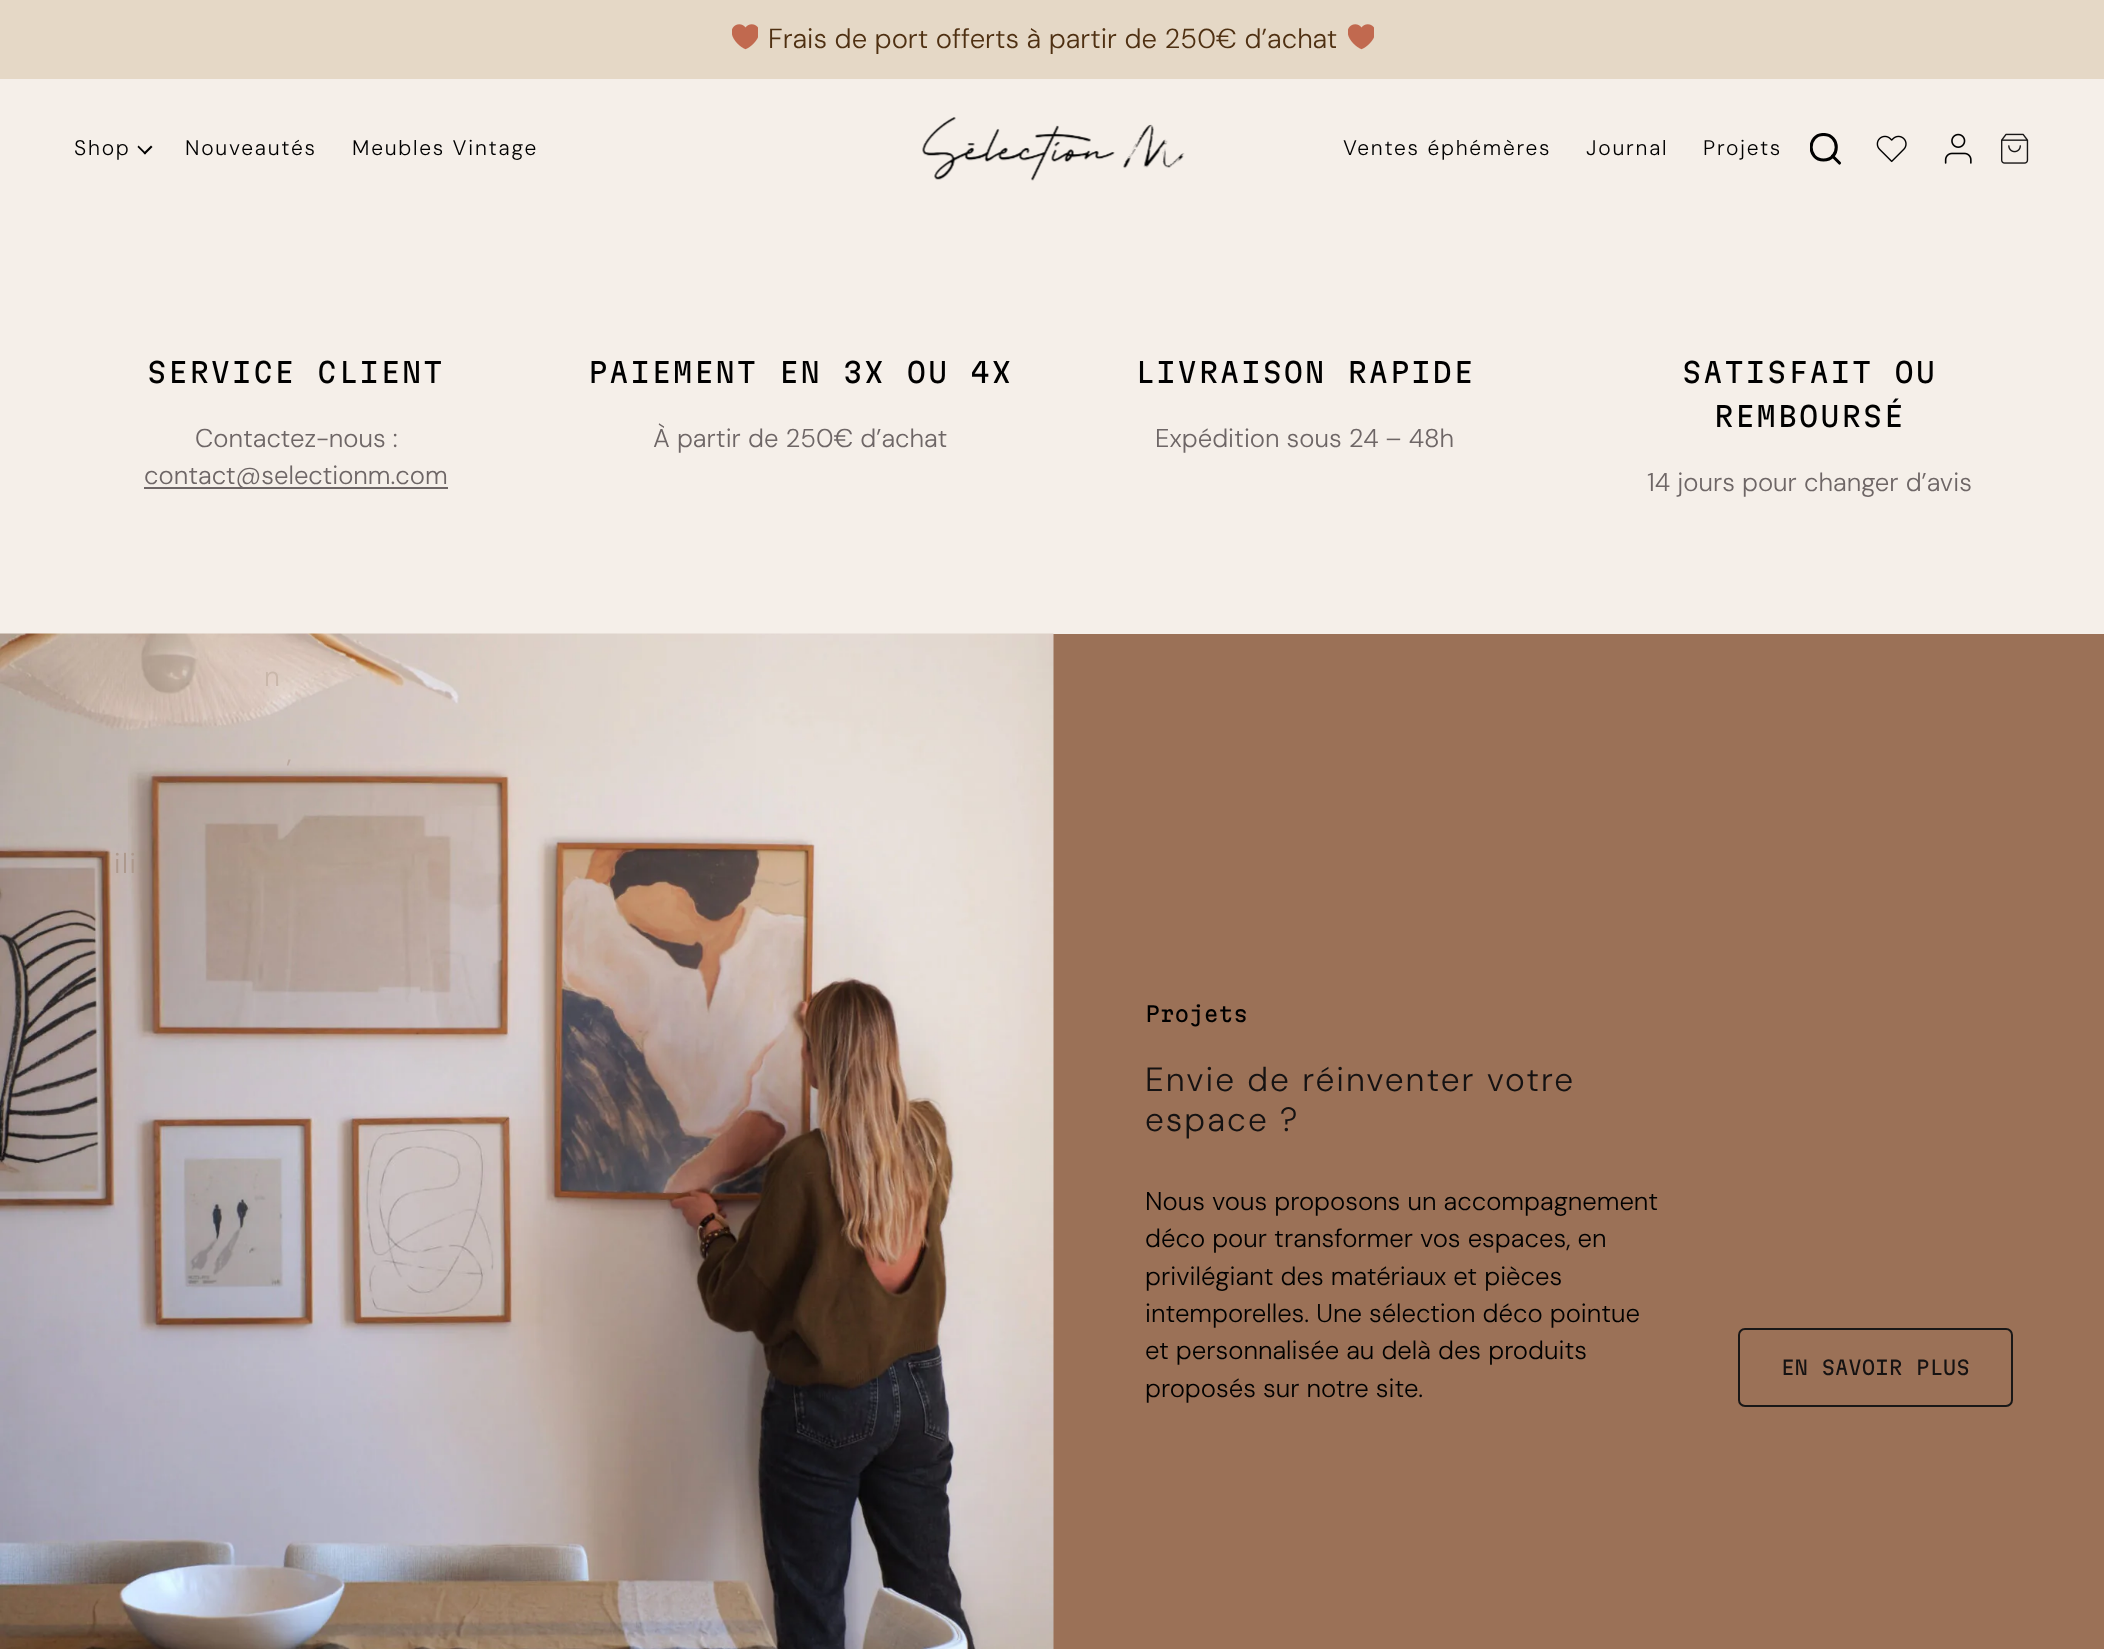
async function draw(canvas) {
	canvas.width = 2104;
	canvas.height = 1649;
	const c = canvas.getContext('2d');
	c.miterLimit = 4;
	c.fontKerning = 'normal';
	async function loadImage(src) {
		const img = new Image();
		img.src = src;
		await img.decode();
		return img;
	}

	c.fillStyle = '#f5efe9';
	c.fillRect(0, 0, 2104, 1649);
	c.fillStyle = '#e5d8c6';
	c.fillRect(0, 0, 2104, 79);
	c.drawImage(await loadImage('img1.png'), 732, 24, 26, 26);
	c.font = '300 27.5px "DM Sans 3"';
	c.fillStyle = '#4f3012';
	c.fillText('Frais de port offerts à partir de 250€ d’achat', 768, 48);
	c.drawImage(await loadImage('img1.png'), 1348, 24, 26, 26);
	c.letterSpacing = '1.75px';
	c.font = '300 21px "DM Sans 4"';
	c.fillStyle = '#000';
	c.fillText('Shop', 74, 155);
	c.beginPath();
	c.moveTo(151, 145.5);
	c.lineTo(152.5, 147);
	c.lineTo(145, 154.5);
	c.lineTo(143.5, 153);
	c.closePath();
	c.fill();
	c.beginPath();
	c.moveTo(138.5, 145.5);
	c.lineTo(146, 153);
	c.lineTo(145, 154.5);
	c.lineTo(137.5, 147);
	c.closePath();
	c.fill();
	c.fillStyle = '#9b7157';
	c.fillRect(1053, 634, 1051, 1015);
	c.drawImage(await loadImage('img6.png'), 0, 633, 1054, 1016);
	c.letterSpacing = '1.5px';
	c.font = '300 28px "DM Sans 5"';
	c.fillStyle = '#c9b7aa';
	c.fillText('n', 264, 686);
	c.fillStyle = '#baa89e';
	c.fillText('’', 286, 779);
	c.fillStyle = '#ac988c';
	c.fillText('ili', 114, 873);
	c.letterSpacing = '1.75px';
	c.font = '300 21px "DM Sans 4"';
	c.fillStyle = '#000';
	c.fillText('Nouveautés', 185, 155);
	c.fillText('Meubles Vintage', 352, 155);
	c.drawImage(await loadImage('img2.png'), 922, 117, 263, 64);
	for (const [text, x, y] of [
		['Ventes éphémères', 1343, 155],
		['Journal', 1586, 155],
		['Projets', 1703, 155],
	]) {
		c.fillText(text, x, y);
	}
	c.save();
	c.beginPath();
	c.rect(1810, 133, 31, 32);
	c.clip();
	c.beginPath();
	c.moveTo(1823.5, 160);
	c.bezierCurveTo(1840.5, 160, 1840.5, 134.5, 1823.5, 134.5);
	c.bezierCurveTo(1807, 134.5, 1807, 160, 1823.5, 160);
	c.closePath();
	c.strokeStyle = '#000';
	c.lineWidth = 3.1;
	c.lineCap = 'round';
	c.lineJoin = 'round';
	c.stroke();
	c.restore();
	c.beginPath();
	c.moveTo(1839.5, 163);
	c.lineTo(1832.5, 156);
	c.strokeStyle = '#000';
	c.lineWidth = 3.1;
	c.lineCap = 'round';
	c.lineJoin = 'round';
	c.stroke();
	c.drawImage(await loadImage('img3.png'), 1876, 135, 31, 28);
	c.drawImage(await loadImage('img4.png'), 1944, 133, 28, 31);
	c.drawImage(await loadImage('img5.png'), 2001, 133, 28, 31);
	c.letterSpacing = '2px';
	c.font = '27.5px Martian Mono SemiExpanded';
	c.fillText('SERVICE CLIENT', 147, 383);
	c.letterSpacing = '0px';
	c.font = '300 25.75px "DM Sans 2"';
	c.fillStyle = '#6e6666';
	c.fillText('Contactez-nous :', 195, 447);
	c.fillRect(144, 487, 304, 2);
	c.fillText('contact@selectionm.com', 144, 484);
	c.letterSpacing = '2px';
	c.font = '27.5px Martian Mono SemiExpanded';
	c.fillStyle = '#000';
	c.fillText('PAIEMENT EN 3X OU 4X', 588, 383);
	c.letterSpacing = '0px';
	c.font = '300 25.75px "DM Sans 2"';
	c.fillStyle = '#6e6666';
	c.fillText('À partir de 250€ d’achat', 653, 447);
	c.letterSpacing = '2px';
	c.font = '27.5px Martian Mono SemiExpanded';
	c.fillStyle = '#000';
	c.fillText('LIVRAISON RAPIDE', 1135, 383);
	c.letterSpacing = '0px';
	c.font = '300 25.75px "DM Sans 2"';
	c.fillStyle = '#6e6666';
	c.fillText('Expédition sous 24 – 48h', 1155, 447);
	c.letterSpacing = '2px';
	c.font = '27.5px Martian Mono SemiExpanded';
	c.fillStyle = '#000';
	c.fillText('SATISFAIT OU', 1682, 383);
	c.fillText('REMBOURSÉ', 1714, 427);
	c.letterSpacing = '0px';
	c.font = '300 25.75px "DM Sans 2"';
	c.fillStyle = '#6e6666';
	c.fillText('14 jours pour changer d’avis', 1647, 491);
	c.font = '21px Martian Mono SemiExpanded';
	c.fillStyle = '#000';
	c.fillText('Projets', 1145, 1022);
	c.letterSpacing = '2px';
	c.font = '300 33.6px DM Sans';
	c.fillStyle = '#151212';
	c.fillText('Envie de réinventer votre', 1145, 1091);
	c.fillText('espace ?', 1145, 1131);
	c.letterSpacing = '0px';
	c.font = '300 25.75px "DM Sans 2"';
	c.fillStyle = '#000';
	for (const [text, x, y] of [
		['Nous vous proposons un accompagnement', 1145, 1210],
		['déco pour transformer vos espaces, en', 1145, 1247],
		['privilégiant des matériaux et pièces', 1145, 1285],
		['intemporelles. Une sélection déco pointue', 1145, 1322],
		['et personnalisée au delà des produits', 1145, 1359],
		['proposés sur notre site.', 1145, 1397],
	]) {
		c.fillText(text, x, y);
	}
	c.beginPath();
	c.roundRect(1739, 1329, 273, 77, 6);
	c.strokeStyle = '#191717';
	c.lineWidth = 2;
	c.lineJoin = 'miter';
	c.stroke();
	c.font = '19.25px Martian Mono SemiExpanded';
	c.fillStyle = '#151212';
	c.fillText('EN SAVOIR PLUS', 1781, 1375);
}

draw(document.querySelector('canvas'));
